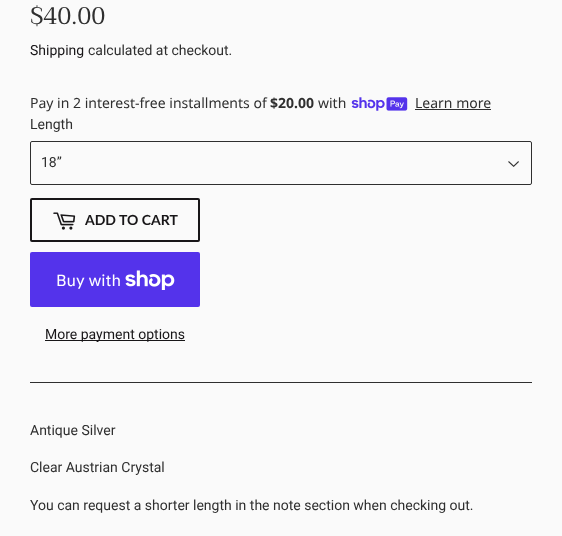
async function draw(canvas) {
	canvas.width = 562;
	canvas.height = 536;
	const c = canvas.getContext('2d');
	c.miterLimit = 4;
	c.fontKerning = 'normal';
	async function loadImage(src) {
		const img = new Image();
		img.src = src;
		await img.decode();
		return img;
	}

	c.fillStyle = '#fafafa';
	c.fillRect(0, 0, 562, 536);
	c.font = '24px Trirong';
	c.fillStyle = '#2f2f2f';
	c.fillText('$40.00', 30, 24);
	c.font = '14px Roboto';
	c.fillStyle = '#181618';
	c.fillText('Shipping', 30, 55);
	c.fillStyle = '#2f2f2f';
	c.fillText('calculated at checkout.', 88, 55);
	c.font = '14px Noto Sans';
	c.fillText('Pay in 2 interest-free installments of', 30, 108);
	c.font = 'bold 14px Noto Sans';
	c.fillText('$20.00', 270, 108);
	c.font = '14px Noto Sans';
	c.fillText('with', 318, 108);
	c.drawImage(await loadImage('img1.png'), 351, 97, 57, 14);
	c.fillText('Learn more', 415, 108);
	c.fillRect(415, 109, 76, 1);
	c.font = '14px Roboto';
	c.fillText('Length', 30, 129);
	c.drawImage(await loadImage('img2.png'), 508, 161, 11, 6);
	c.beginPath();
	c.roundRect(30.5, 141.5, 501, 43, 1.5);
	c.strokeStyle = '#2f2f2f';
	c.stroke();
	c.fillText('18”', 41, 167);
	c.beginPath();
	c.roundRect(31, 199, 168, 42, 1);
	c.strokeStyle = '#181618';
	c.lineWidth = 2;
	c.stroke();
	c.drawImage(await loadImage('img3.png'), 53, 212, 23, 18);
	c.font = 'bold 14px Lato';
	c.fillStyle = '#181618';
	c.fillText('ADD TO CART', 85, 225);
	c.fillStyle = '#5433eb';
	c.beginPath();
	c.roundRect(30, 252, 170, 55, 2);
	c.fill();
	c.font = '16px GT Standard';
	c.fillStyle = '#fff';
	c.fillText('Buy with', 56, 286);
	c.drawImage(await loadImage('img4.png'), 125, 270, 50, 20);
	c.fillStyle = '#181618';
	c.fillRect(45, 340, 140, 1);
	c.font = '14px Roboto';
	c.fillText('More payment options', 45, 339);
	c.fillStyle = '#2f2f2f';
	c.fillRect(30, 382, 502, 1);
	for (const [text, x, y] of [
		['Antique Silver', 30, 435],
		['Clear Austrian Crystal', 30, 472],
		['You can request a shorter length in the note section when checking out.', 30, 510],
	]) {
		c.fillText(text, x, y);
	}
}

draw(document.querySelector('canvas'));
